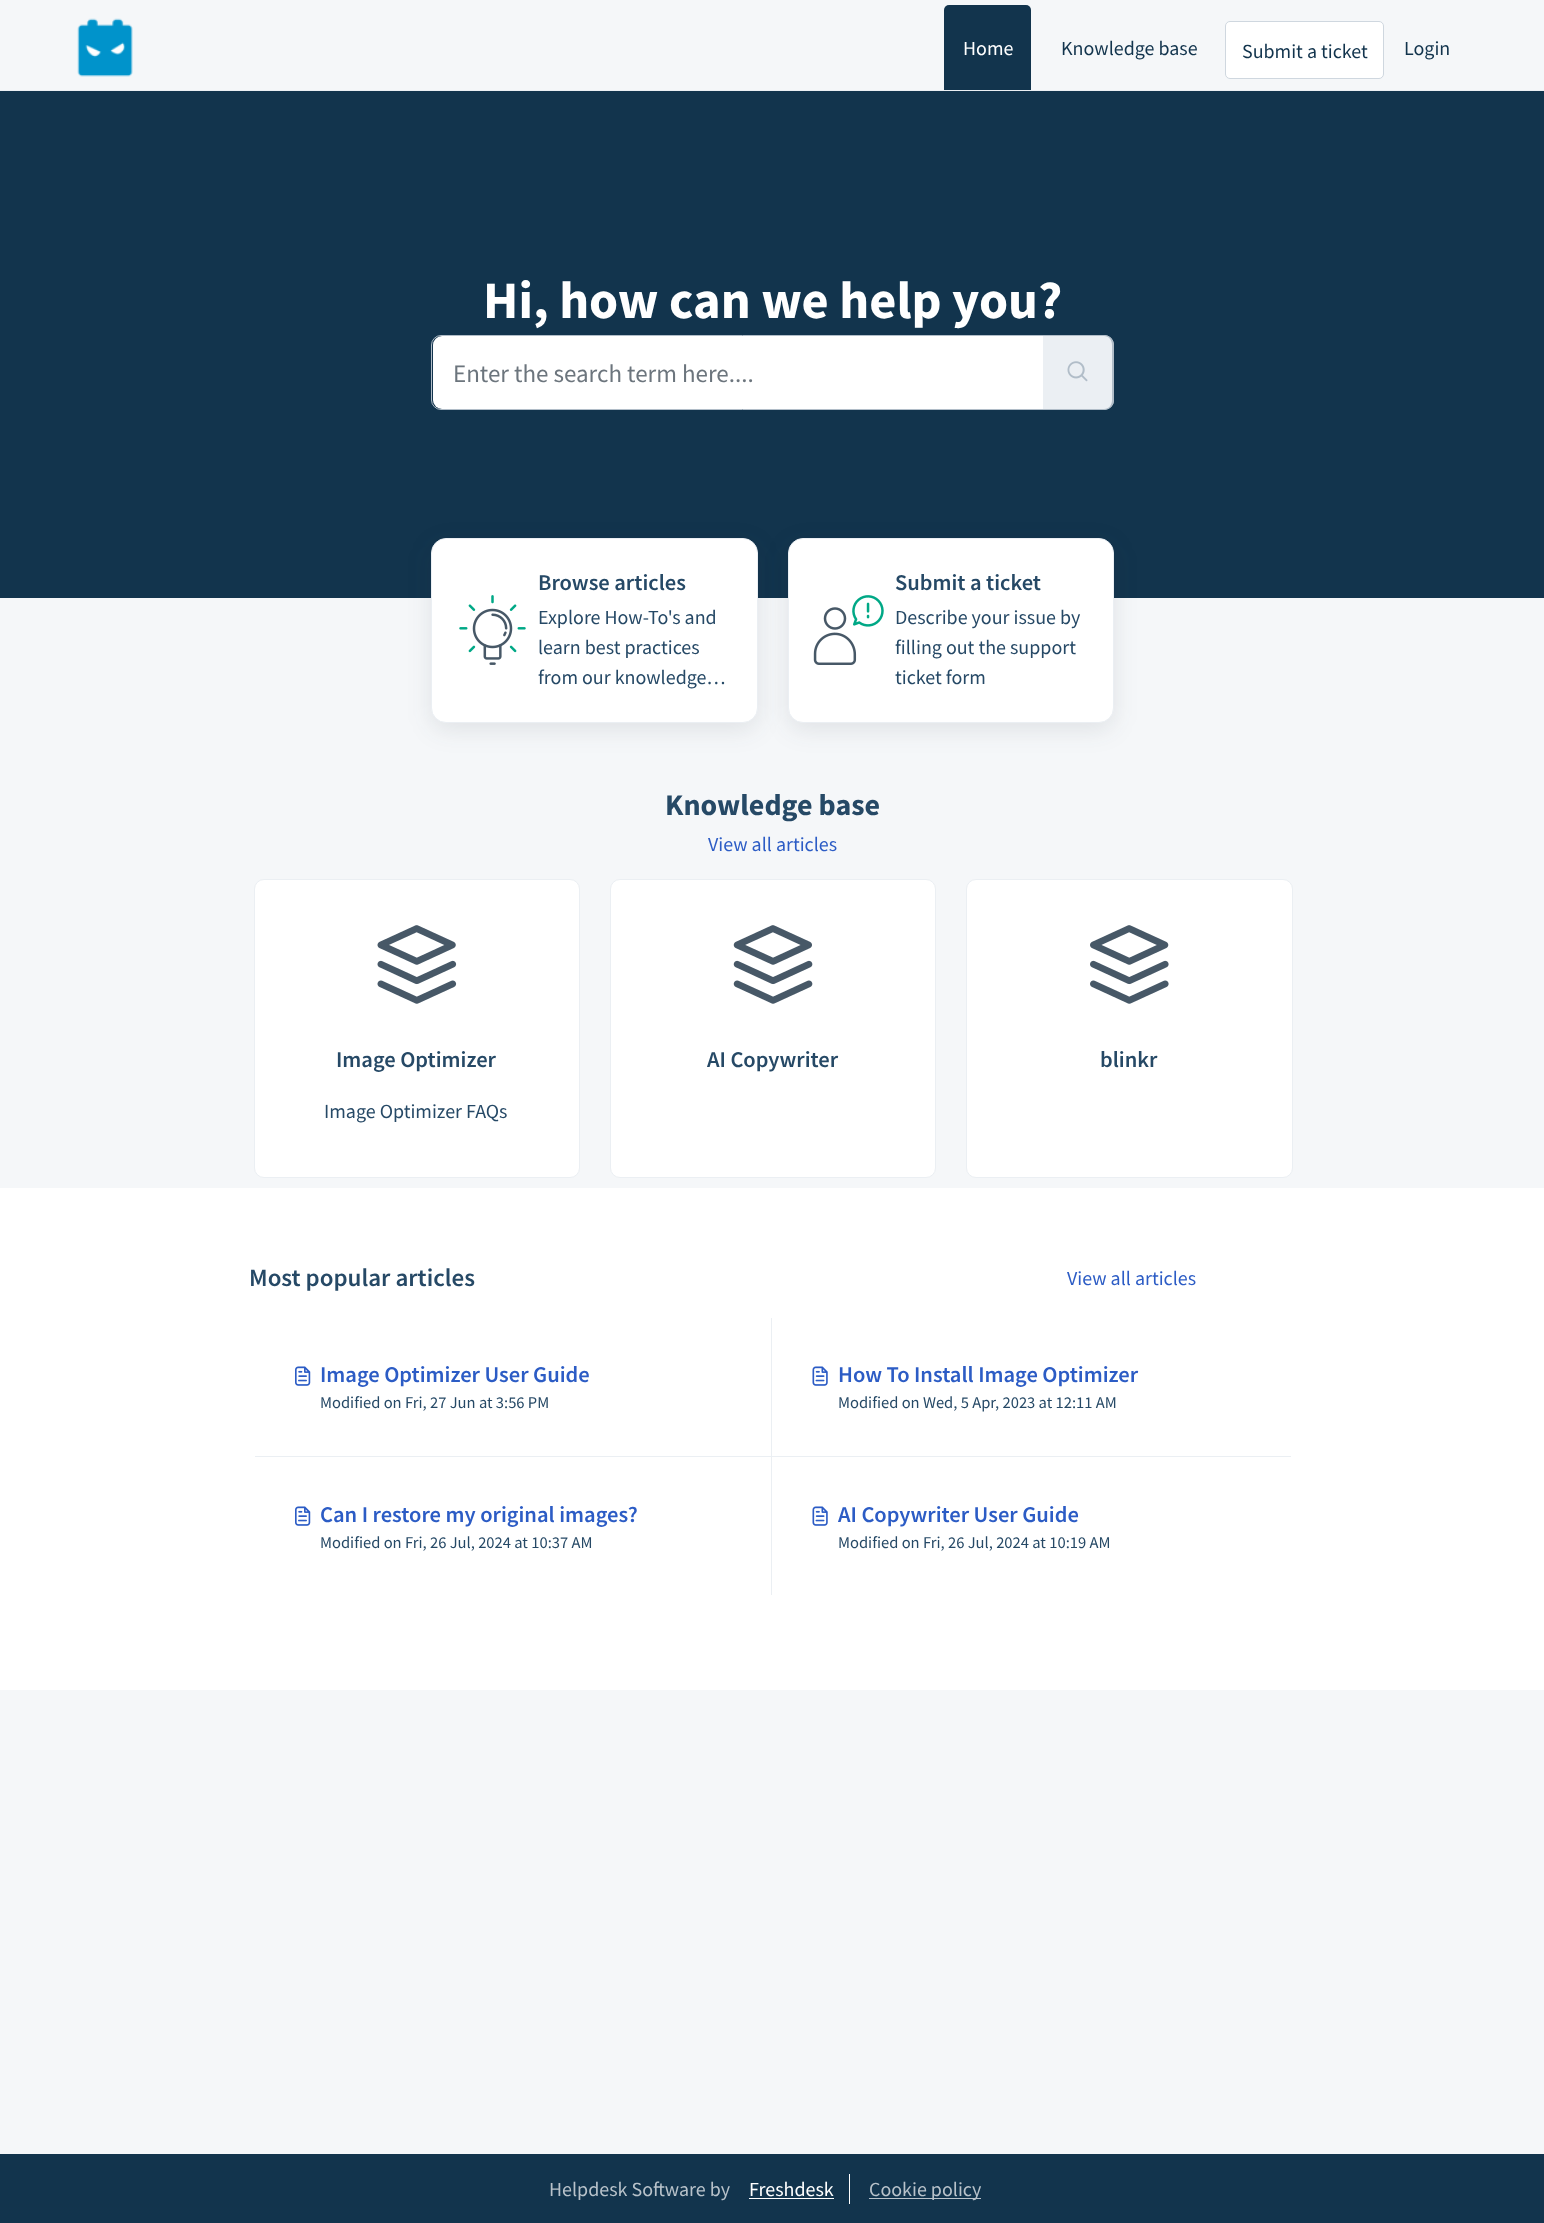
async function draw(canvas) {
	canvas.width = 1544;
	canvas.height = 2223;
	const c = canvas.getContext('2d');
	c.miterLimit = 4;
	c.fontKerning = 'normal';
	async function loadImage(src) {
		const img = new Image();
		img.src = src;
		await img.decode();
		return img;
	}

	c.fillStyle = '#f5f7f9';
	c.fillRect(0, 0, 1544, 2223);
	c.fillStyle = '#ebeff3';
	c.fillRect(0, 90, 1544, 1);
	c.drawImage(await loadImage('img1.png'), 77, 18, 56, 59);
	c.fillStyle = '#12344d';
	c.beginPath();
	c.roundRect(944, 5, 87, 85, [5, 5, 0, 0]);
	c.fill();
	c.font = '20px Source Sans Pro';
	c.fillStyle = '#fff';
	c.fillText('Home', 963, 55);
	c.fillStyle = '#12344d';
	c.fillText('Knowledge base', 1061, 55);
	c.fillStyle = '#fff';
	c.beginPath();
	c.roundRect(1225.5, 21.5, 158, 57, 4.5);
	c.fill();
	c.strokeStyle = '#cfd7df';
	c.stroke();
	c.fillStyle = '#12344d';
	c.fillText('Submit a ticket', 1242, 58);
	c.fillText('Login', 1404, 55);
	c.fillRect(0, 91, 1544, 507);
	c.font = 'bold 52.5px Source Sans Pro';
	c.fillStyle = '#fff';
	c.fillText('Hi, how can we help you?', 483, 318);
	c.beginPath();
	c.roundRect(433, 336, 610, 73, [9, 0, 0, 9]);
	c.fill();
	c.beginPath();
	c.roundRect(431.5, 335.5, 612, 74, [9.5, 0, 0, 9.5]);
	c.strokeStyle = '#b1bdc8';
	c.stroke();
	c.font = '25px Source Sans Pro';
	c.fillStyle = '#6c757d';
	c.fillText('Enter the search term here....', 453, 382);
	c.fillStyle = '#ebeff3';
	c.beginPath();
	c.roundRect(1043, 335, 71, 75, [0, 10, 10, 0]);
	c.fill();
	c.fillStyle = '#b1bdc8';
	c.beginPath();
	c.moveTo(1042, 335);
	c.lineTo(1104, 335);
	c.bezierCurveTo(1109, 335, 1114, 339, 1114, 345);
	c.lineTo(1114, 400);
	c.bezierCurveTo(1114, 406, 1109, 410, 1104, 410);
	c.lineTo(1042, 410);
	c.closePath();
	c.moveTo(1042, 336);
	c.lineTo(1104, 336);
	c.bezierCurveTo(1109, 336, 1112, 340, 1112, 345);
	c.lineTo(1112, 400);
	c.bezierCurveTo(1112, 405, 1109, 409, 1104, 409);
	c.lineTo(1042, 409);
	c.closePath();
	c.fill('evenodd');
	c.drawImage(await loadImage('img2.png'), 1067, 361, 21, 21);
	c.fillStyle = '#27313a1a';
	c.filter = 'blur(12px)';
	c.beginPath();
	c.roundRect(431, 545, 327, 185, 15);
	c.fill();
	c.filter = 'none';
	c.fillStyle = '#fff';
	c.beginPath();
	c.roundRect(431.5, 538.5, 326, 184, 14.5);
	c.fill();
	c.strokeStyle = '#ebeff3';
	c.stroke();
	c.drawImage(await loadImage('img3.png'), 459, 595, 67, 70);
	c.font = '600 22.5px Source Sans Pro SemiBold';
	c.fillStyle = '#264966';
	c.fillText('Browse articles', 538, 590);
	c.font = '20px Source Sans Pro';
	for (const [text, x, y] of [
		['Explore How-To\'s and', 538, 624],
		['learn best practices', 538, 654],
		['from our knowledge…', 538, 684],
	]) {
		c.fillText(text, x, y);
	}
	c.fillStyle = '#27313a1a';
	c.filter = 'blur(12px)';
	c.beginPath();
	c.roundRect(788, 545, 326, 185, 15);
	c.fill();
	c.filter = 'none';
	c.fillStyle = '#fff';
	c.beginPath();
	c.roundRect(788.5, 538.5, 325, 184, 14.5);
	c.fill();
	c.stroke();
	c.drawImage(await loadImage('img4.png'), 813, 595, 71, 70);
	c.font = '600 22.5px Source Sans Pro SemiBold';
	c.fillStyle = '#264966';
	c.fillText('Submit a ticket', 895, 590);
	c.font = '20px Source Sans Pro';
	for (const [text, x, y] of [
		['Describe your issue by', 895, 624],
		['filling out the support', 895, 654],
		['ticket form', 895, 684],
	]) {
		c.fillText(text, x, y);
	}
	c.font = 'bold 30px Source Sans Pro';
	c.fillText('Knowledge base', 665, 815);
	c.font = '20px Source Sans Pro';
	c.fillStyle = '#2c5cc5';
	c.fillText('View all articles', 708, 851);
	c.fillStyle = '#fff';
	c.beginPath();
	c.roundRect(254.5, 879.5, 325, 298, 9.5);
	c.fill();
	c.stroke();
	c.drawImage(await loadImage('img5.png'), 377, 925, 80, 79);
	c.font = '600 22.5px Source Sans Pro SemiBold';
	c.fillStyle = '#264966';
	c.fillText('Image Optimizer', 336, 1067);
	c.font = '20px Source Sans Pro';
	c.fillText('Image Optimizer FAQs', 324, 1118);
	c.fillStyle = '#fff';
	c.beginPath();
	c.roundRect(610.5, 879.5, 325, 298, 9.5);
	c.fill();
	c.stroke();
	c.drawImage(await loadImage('img6.png'), 733, 925, 80, 79);
	c.font = '600 22.5px Source Sans Pro SemiBold';
	c.fillStyle = '#264966';
	c.fillText('AI Copywriter', 707, 1067);
	c.fillStyle = '#fff';
	c.beginPath();
	c.roundRect(966.5, 879.5, 326, 298, 9.5);
	c.fill();
	c.stroke();
	c.drawImage(await loadImage('img7.png'), 1090, 925, 79, 79);
	c.fillStyle = '#264966';
	c.fillText('blinkr', 1100, 1067);
	c.fillStyle = '#fff';
	c.fillRect(0, 1188, 1544, 502);
	c.font = '600 25px Source Sans Pro SemiBold';
	c.fillStyle = '#264966';
	c.fillText('Most popular articles', 249, 1286);
	c.font = '20px Source Sans Pro';
	c.fillStyle = '#2c5cc5';
	c.fillText('View all articles', 1067, 1285);
	c.fillStyle = '#ebeff3';
	c.fillRect(771, 1318, 1, 277);
	c.fillRect(255, 1456, 1036, 1);
	c.drawImage(await loadImage('img8.png'), 295, 1366, 16, 20);
	c.font = '600 22.5px Source Sans Pro SemiBold';
	c.fillStyle = '#2c5cc5';
	c.fillText('Image Optimizer User Guide', 320, 1382);
	c.font = '16.5px Source Sans Pro';
	c.fillStyle = '#264966';
	c.fillText('Modified on Fri, 27 Jun at 3:56 PM', 320, 1408);
	c.drawImage(await loadImage('img9.png'), 812, 1366, 16, 20);
	c.font = '600 22.5px Source Sans Pro SemiBold';
	c.fillStyle = '#2c5cc5';
	c.fillText('How To Install Image Optimizer', 838, 1382);
	c.font = '16.5px Source Sans Pro';
	c.fillStyle = '#264966';
	c.fillText('Modified on Wed, 5 Apr, 2023 at 12:11 AM', 838, 1408);
	c.drawImage(await loadImage('img8.png'), 295, 1506, 16, 20);
	c.font = '600 22.5px Source Sans Pro SemiBold';
	c.fillStyle = '#2c5cc5';
	c.fillText('Can I restore my original images?', 320, 1522);
	c.font = '16.5px Source Sans Pro';
	c.fillStyle = '#264966';
	c.fillText('Modified on Fri, 26 Jul, 2024 at 10:37 AM', 320, 1548);
	c.drawImage(await loadImage('img9.png'), 812, 1506, 16, 20);
	c.font = '600 22.5px Source Sans Pro SemiBold';
	c.fillStyle = '#2c5cc5';
	c.fillText('AI Copywriter User Guide', 838, 1522);
	c.font = '16.5px Source Sans Pro';
	c.fillStyle = '#264966';
	c.fillText('Modified on Fri, 26 Jul, 2024 at 10:19 AM', 838, 1548);
	c.fillStyle = '#12344d';
	c.fillRect(0, 2154, 1544, 69);
	c.font = '20px Source Sans Pro';
	c.fillStyle = '#b8c2ca';
	c.fillText('Helpdesk Software by', 549, 2196);
	c.fillStyle = '#fff';
	c.fillRect(849, 2174, 1, 30);
	c.fillText('Freshdesk', 749, 2196);
	c.fillRect(749, 2198, 85, 1);
	c.fillStyle = '#b8c2ca';
	c.fillRect(869, 2198, 112, 1);
	c.fillText('Cookie policy', 869, 2196);
}

draw(document.querySelector('canvas'));
